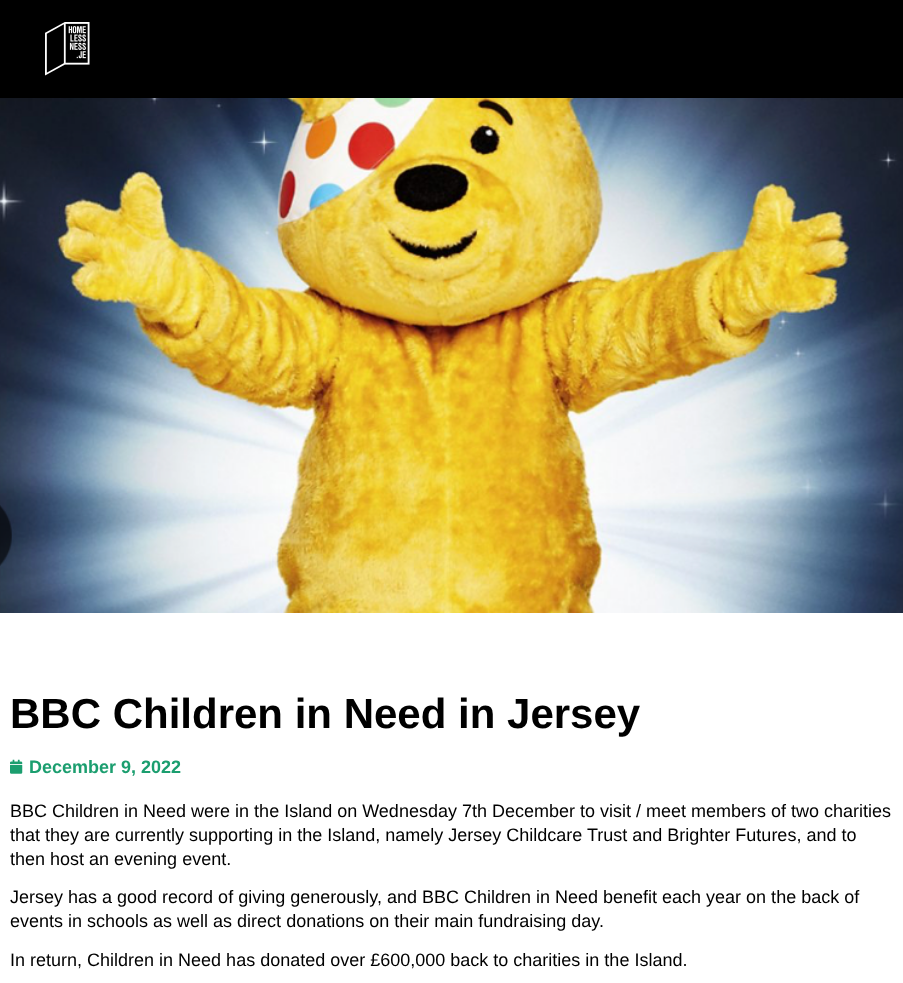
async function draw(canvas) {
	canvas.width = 903;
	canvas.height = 983;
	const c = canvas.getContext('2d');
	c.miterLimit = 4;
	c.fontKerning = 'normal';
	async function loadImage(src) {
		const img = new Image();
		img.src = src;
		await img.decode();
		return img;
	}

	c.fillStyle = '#fff';
	c.fillRect(0, 0, 903, 983);
	c.fillStyle = '#000';
	c.fillRect(0, 0, 903, 98);
	c.drawImage(await loadImage('img1.png'), 45, 22, 45, 54);
	c.drawImage(await loadImage('img2.png'), 0, 98, 903, 515);
	c.font = 'bold 42px Liberation Sans';
	c.fillText('BBC Children in Need in Jersey', 10, 728);
	c.drawImage(await loadImage('img3.png'), 10, 759, 13, 15);
	c.font = 'bold 18px Liberation Sans';
	c.fillStyle = '#1b9e6f';
	c.fillText('December 9, 2022', 29, 773);
	c.font = '18px Liberation Sans';
	c.fillStyle = '#000';
	for (const [text, x, y] of [
		['BBC Children in Need were in the Island on Wednesday 7th December to visit / meet members of two charities', 10, 817],
		['that they are currently supporting in the Island, namely Jersey Childcare Trust and Brighter Futures, and to', 10, 841],
		['then host an evening event.', 10, 865],
		['Jersey has a good record of giving generously, and BBC Children in Need benefit each year on the back of', 10, 903],
		['events in schools as well as direct donations on their main fundraising day.', 10, 927],
		['In return, Children in Need has donated over £600,000 back to charities in the Island.', 10, 966],
	]) {
		c.fillText(text, x, y);
	}
}

draw(document.querySelector('canvas'));
